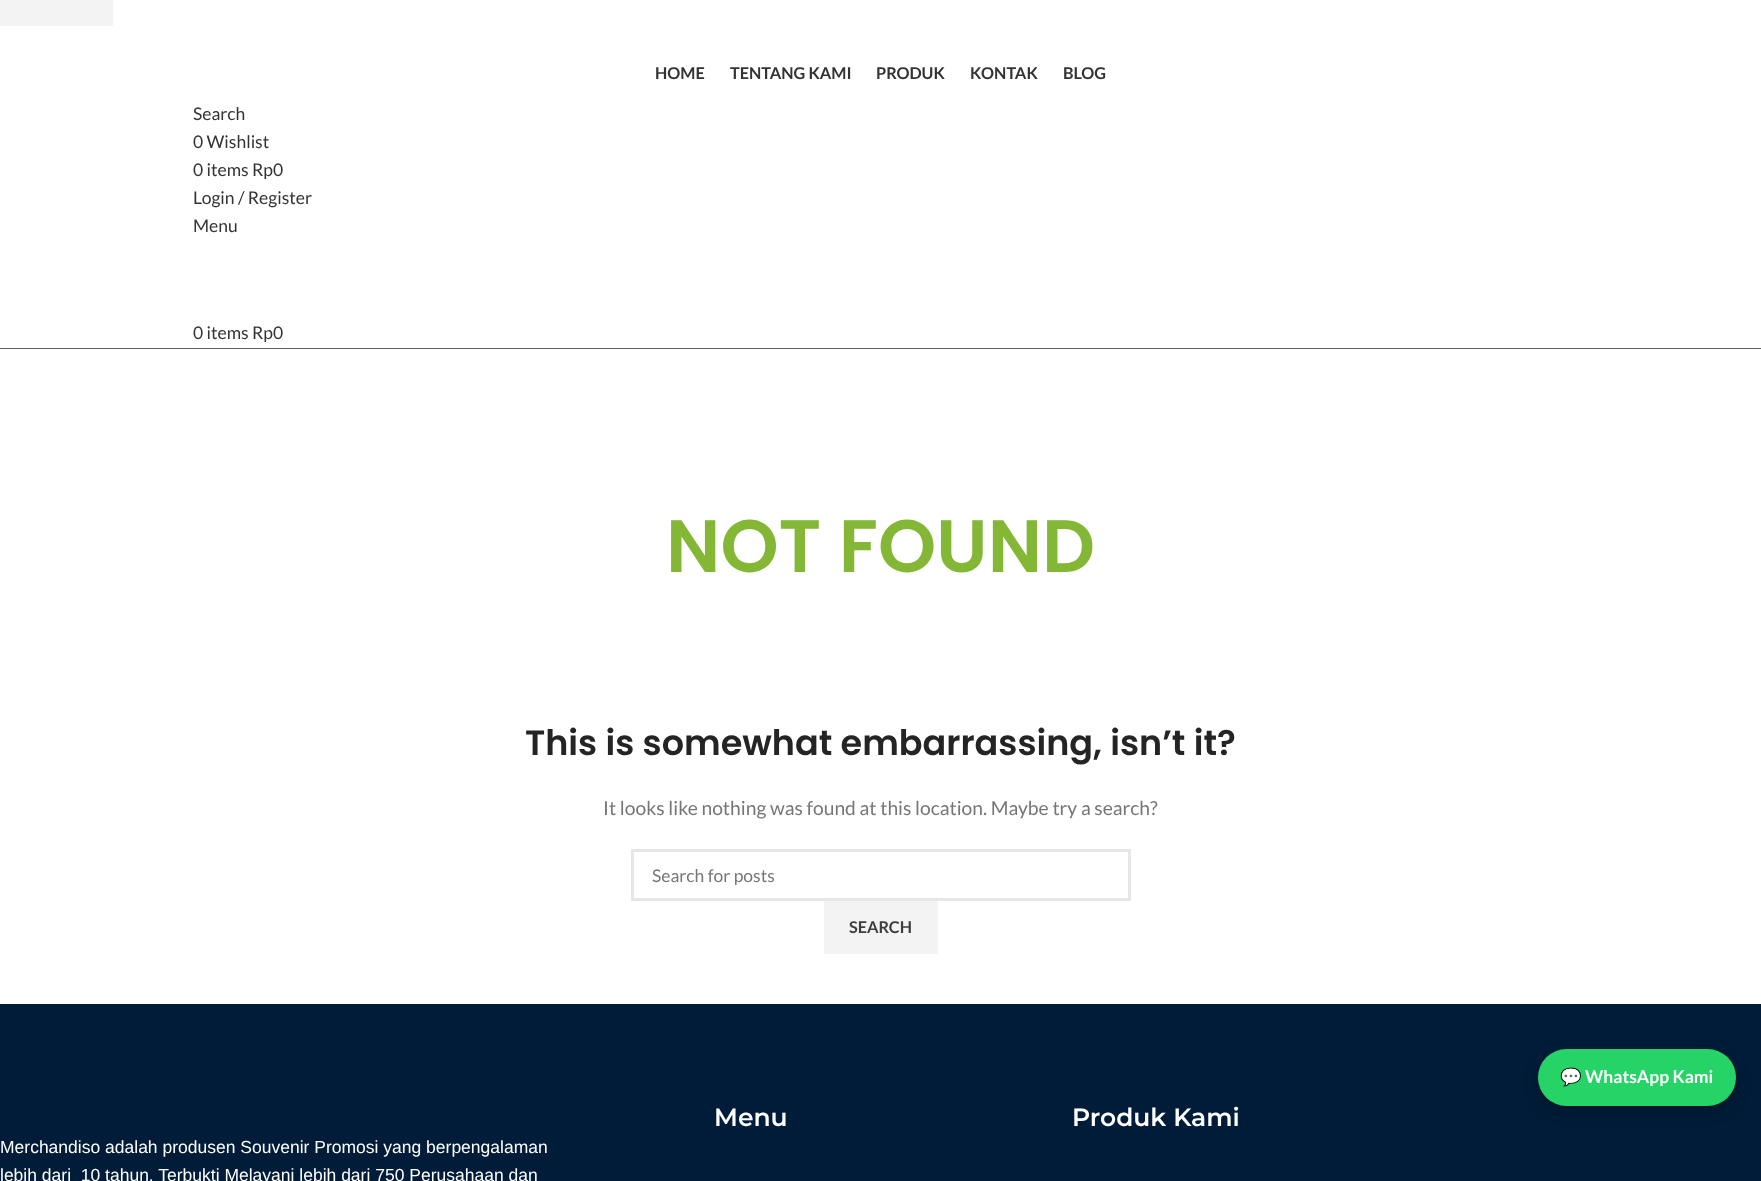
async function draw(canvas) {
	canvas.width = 1761;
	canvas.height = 1181;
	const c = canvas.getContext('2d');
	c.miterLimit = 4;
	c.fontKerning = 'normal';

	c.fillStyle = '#fff';
	c.fillRect(0, 0, 1761, 1181);
	c.fillStyle = '#f3f3f3';
	c.fillRect(0, 0, 113, 26);
	c.fillStyle = '#5d5d5d';
	c.fillRect(0, 348, 1761, 1);
	c.font = 'bold 16.25px Lato';
	c.fillStyle = '#333';
	for (const [text, x, y] of [
		['HOME', 655, 79],
		['TENTANG KAMI', 730, 79],
		['PRODUK', 876, 79],
		['KONTAK', 970, 79],
		['BLOG', 1063, 79],
	]) {
		c.fillText(text, x, y);
	}
	c.font = '17.5px Lato';
	for (const [text, x, y] of [
		['Search', 193, 120],
		['0 Wishlist', 193, 148],
		['0 items Rp0', 193, 176],
		['Login / Register', 193, 204],
		['Menu', 193, 232],
		['0 items Rp0', 193, 339],
	]) {
		c.fillText(text, x, y);
	}
	c.font = '600 74px Poppins';
	c.fillStyle = '#83b735';
	c.fillText('NOT FOUND', 666, 572);
	c.font = '600 35px Poppins';
	c.fillStyle = '#242424';
	c.fillText('This is somewhat embarrassing, isn’t it?', 525, 755);
	c.font = '19.25px Lato';
	c.fillStyle = '#767676';
	c.fillText('It looks like nothing was found at this location. Maybe try a search?', 603, 815);
	c.strokeStyle = '#e6e6e6';
	c.lineWidth = 3;
	c.strokeRect(632.5, 850.5, 497, 49);
	c.font = '17.5px Lato';
	c.fillText('Search for posts', 652, 882);
	c.fillStyle = '#f3f3f3';
	c.fillRect(824, 901, 114, 53);
	c.font = 'bold 16.25px Lato';
	c.fillStyle = '#3e3e3e';
	c.fillText('SEARCH', 849, 933);
	c.fillStyle = '#001c38';
	c.fillRect(0, 1004, 1761, 177);
	c.font = '600 25px Montserrat';
	c.fillStyle = '#fff';
	c.fillText('Menu', 714, 1126);
	c.fillText('Produk Kami', 1072, 1126);
	c.font = '17.5px Liberation Sans';
	c.fillText('Merchandiso adalah produsen Souvenir Promosi yang berpengalaman', 0, 1153);
	c.fillText('lebih dari  10 tahun, Terbukti Melayani lebih dari 750 Perusahaan dan', 0, 1181);
	c.fillStyle = '#00000033';
	c.filter = 'blur(7.5px)';
	c.beginPath();
	c.roundRect(1538, 1054, 198, 57, 28.5);
	c.fill();
	c.filter = 'none';
	c.fillStyle = '#25d366';
	c.beginPath();
	c.roundRect(1538, 1049, 198, 57, 28.5);
	c.fill();
	c.font = 'bold 17.5px Noto Color Emoji';
	c.fillStyle = '#fff';
	c.fillText('💬', 1560, 1083);
	c.font = 'bold 17.5px Lato';
	c.fillText('WhatsApp Kami', 1585, 1083);
}

draw(document.querySelector('canvas'));
